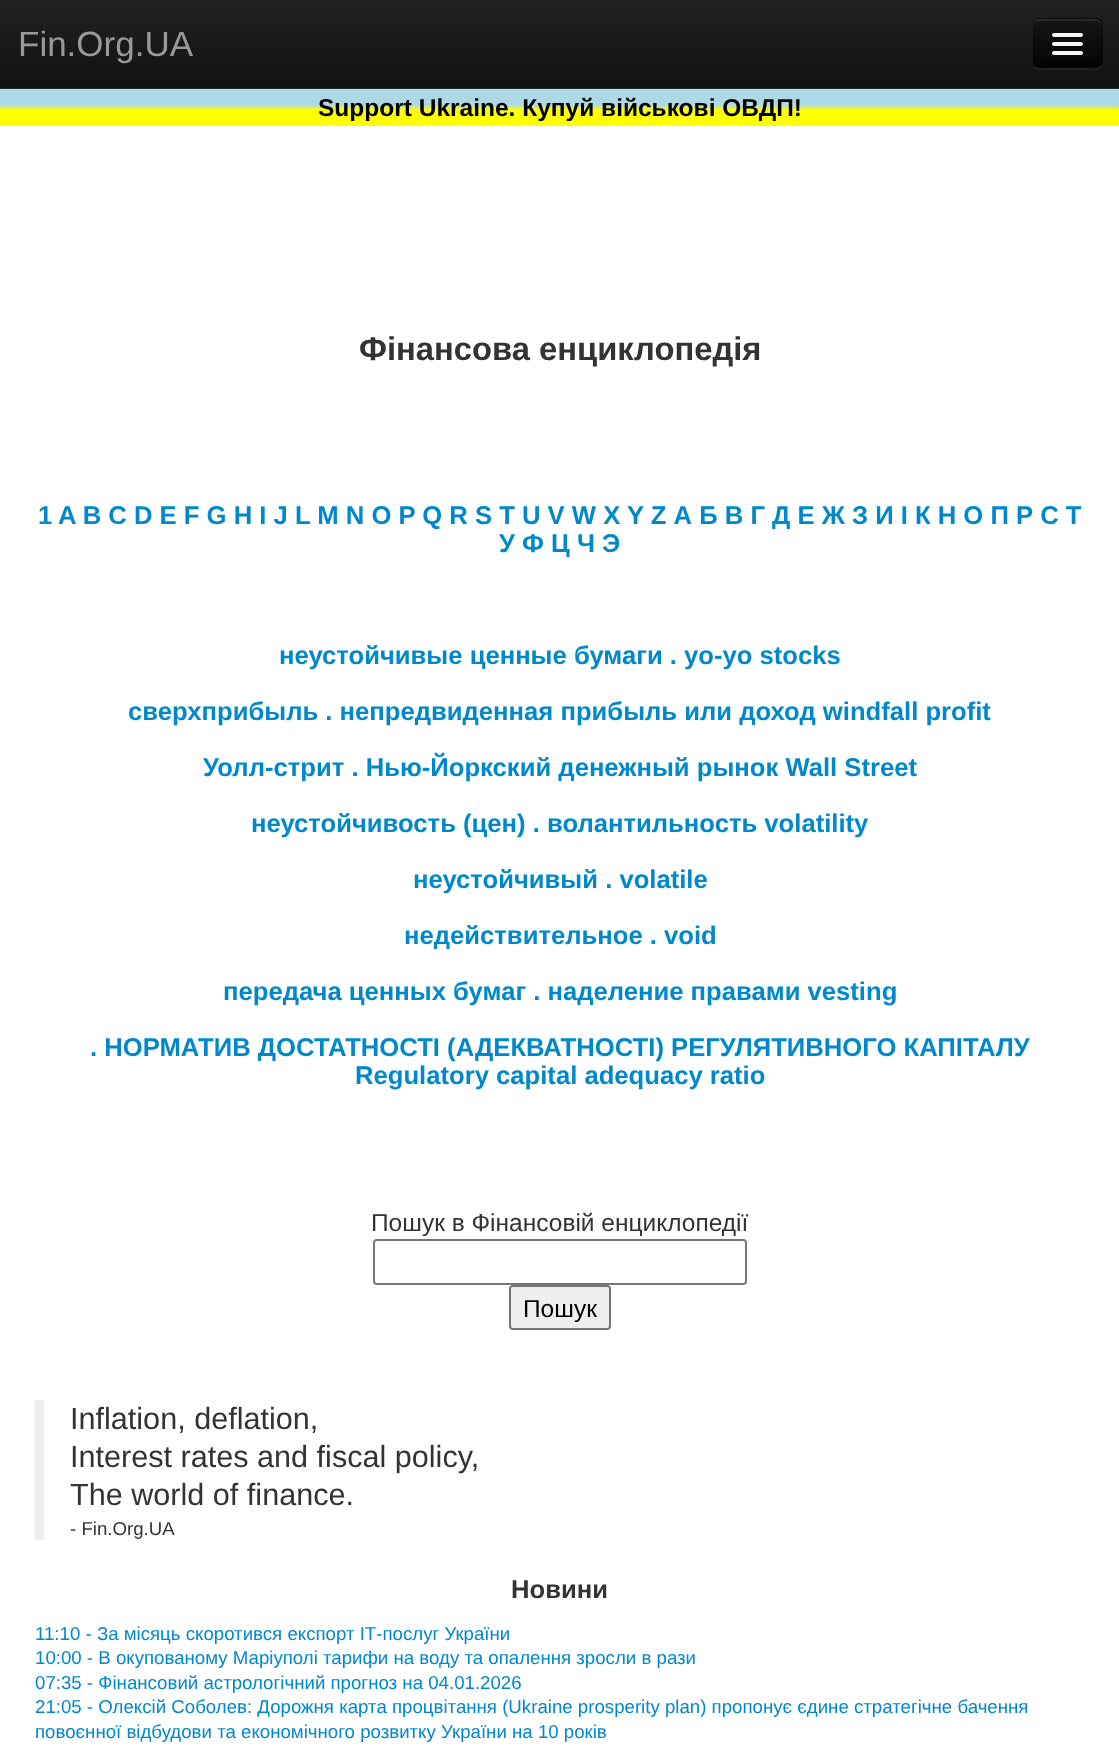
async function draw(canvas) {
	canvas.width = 1119;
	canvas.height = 1747;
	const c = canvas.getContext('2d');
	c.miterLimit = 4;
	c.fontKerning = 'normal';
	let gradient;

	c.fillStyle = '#fff';
	c.fillRect(0, 0, 1119, 1747);
	gradient = c.createLinearGradient(560, 0, 560, 88);
	gradient.addColorStop(0, '#222');
	gradient.addColorStop(1, '#111');
	c.fillStyle = gradient;
	c.fillRect(0, 0, 1119, 88);
	c.fillStyle = '#252525';
	c.fillRect(0, 88, 1119, 1);
	c.font = '35px Liberation Sans';
	c.fillStyle = '#999';
	c.fillText('Fin.Org.UA', 18, 56);
	c.fillStyle = '#ffffff12';
	c.beginPath();
	c.moveTo(1033, 64);
	c.bezierCurveTo(1034, 67, 1036, 70, 1040, 70);
	c.lineTo(1096, 70);
	c.bezierCurveTo(1100, 70, 1103, 67, 1103, 63);
	c.lineTo(1103, 26);
	c.lineTo(1102, 23);
	c.lineTo(1102, 63);
	c.lineTo(1101, 65);
	c.bezierCurveTo(1098, 70, 1091, 68, 1086, 68);
	c.lineTo(1049, 68);
	c.bezierCurveTo(1044, 68, 1036, 70, 1033, 64);
	c.closePath();
	c.fill();
	c.fillStyle = '#0e0e0e';
	c.beginPath();
	c.roundRect(1033, 18, 70, 50, 7);
	c.fill();
	c.save();
	c.beginPath();
	c.roundRect(1033, 18, 70, 50, 7);
	c.clip();
	gradient = c.createLinearGradient(1068, 19, 1068, 67);
	gradient.addColorStop(0, '#151515');
	gradient.addColorStop(1, '#040404');
	c.fillStyle = gradient;
	c.fillRect(1033, 19, 70, 48);
	c.restore();
	c.fillStyle = '#2c2c2c';
	c.beginPath();
	c.moveTo(1040, 21);
	c.lineTo(1096, 21);
	c.bezierCurveTo(1098, 21, 1101, 23, 1101, 26);
	c.bezierCurveTo(1101, 17, 1094, 19, 1086, 19);
	c.lineTo(1048, 19);
	c.bezierCurveTo(1041, 19, 1034, 17, 1034, 26);
	c.bezierCurveTo(1034, 23, 1037, 21, 1040, 21);
	c.closePath();
	c.fill();
	c.beginPath();
	c.moveTo(1100, 65.5);
	c.bezierCurveTo(1098.5, 66.5, 1097, 67.5, 1095.5, 67.5);
	c.lineTo(1039.5, 67.5);
	c.bezierCurveTo(1038, 67.5, 1036.5, 66.5, 1035, 65.5);
	c.strokeStyle = '#00000040';
	c.lineWidth = 1.8;
	c.stroke();
	c.beginPath();
	c.moveTo(1035, 65.5);
	c.bezierCurveTo(1034, 64.5, 1033.5, 63, 1033.5, 61);
	c.lineTo(1033.5, 24.5);
	c.bezierCurveTo(1033.5, 23, 1034, 21.5, 1035, 20);
	c.bezierCurveTo(1036.5, 19, 1038, 18.5, 1039.5, 18.5);
	c.lineTo(1095.5, 18.5);
	c.bezierCurveTo(1097, 18.5, 1098.5, 19, 1100, 20);
	c.bezierCurveTo(1101, 21.5, 1101.5, 23, 1101.5, 24.5);
	c.lineTo(1101.5, 61);
	c.bezierCurveTo(1101.5, 63, 1101, 64.5, 1100, 65.5);
	c.strokeStyle = '#0000001a';
	c.stroke();
	c.fillStyle = '#0b0b0b';
	c.beginPath();
	c.moveTo(1052, 36);
	c.bezierCurveTo(1050.5, 40, 1057.5, 39, 1058.5, 39);
	c.lineTo(1076.5, 39);
	c.bezierCurveTo(1077.5, 39, 1084.5, 40, 1083, 36);
	c.lineTo(1081.5, 36.5);
	c.lineTo(1053.5, 36.5);
	c.closePath();
	c.fill();
	c.fillStyle = '#f5f5f5';
	c.beginPath();
	c.roundRect(1052, 33, 31, 4, 2);
	c.fill();
	c.fillStyle = '#080808';
	c.beginPath();
	c.moveTo(1052.5, 45);
	c.bezierCurveTo(1050, 49, 1058, 48, 1058.5, 48);
	c.lineTo(1076.5, 48);
	c.bezierCurveTo(1077, 48, 1085, 49, 1082.5, 45);
	c.lineTo(1081.5, 45.5);
	c.lineTo(1053.5, 45.5);
	c.closePath();
	c.fill();
	c.fillStyle = '#f5f5f5';
	c.beginPath();
	c.roundRect(1052, 42, 31, 4, 2);
	c.fill();
	c.beginPath();
	c.roundRect(1052, 51, 31, 4, 2);
	c.fill();
	gradient = c.createLinearGradient(560, 89, 560, 126);
	gradient.addColorStop(0, '#add8e6');
	gradient.addColorStop(0.43, '#add8e6');
	gradient.addColorStop(0.57, '#ff0');
	gradient.addColorStop(1, '#ff0');
	c.fillStyle = gradient;
	c.fillRect(0, 89, 1119, 37);
	c.font = 'bold 24.5px Liberation Sans';
	c.fillStyle = '#000';
	c.fillText('Support Ukraine. Купуй військові ОВДП!', 318, 116);
	c.font = 'bold 32.75px Liberation Sans';
	c.fillStyle = '#333';
	c.fillText('Фінансова енциклопедія', 359, 360);
	c.font = 'bold 25.65px Liberation Sans';
	c.fillStyle = '#08c';
	for (const [text, x, y] of [
		['1', 38, 524],
		['A B C D E F G H I J L M N O P Q R S T U V W X', 58, 524],
		['Y Z А Б В Г Д Е Ж З И І К Н О П Р С Т', 627, 524],
		['У Ф Ц Ч Э', 499, 552],
		['неустойчивые ценные бумаги .', 279, 664],
		['yo-yo stocks', 684, 664],
		['сверхприбыль . непредвиденная прибыль или доход windfall profit', 128, 720],
		['Уолл-стрит . Нью-Йоркский денежный рынок Wall Street', 203, 776],
		['неустойчивость (цен) . волантильность volatility', 251, 832],
		['неустойчивый . volatile', 413, 888],
		['недействительное . void', 404, 944],
		['передача ценных бумаг . наделение правами vesting', 223, 1000],
		['. НОРМАТИВ ДОСТАТНОСТІ (АДЕКВАТНОСТІ) РЕГУЛЯТИВНОГО КАПІТАЛУ', 90, 1056],
		['Regulatory capital adequacy ratio', 355, 1084],
	]) {
		c.fillText(text, x, y);
	}
	c.font = '24.5px Liberation Sans';
	c.fillStyle = '#333';
	c.fillText('Пошук в Фінансовій енциклопедії', 371, 1231);
	c.beginPath();
	c.roundRect(374, 1240, 372, 44, 3);
	c.strokeStyle = '#767676';
	c.lineWidth = 2;
	c.stroke();
	c.fillStyle = '#efefef';
	c.beginPath();
	c.roundRect(510, 1286, 100, 43, 3);
	c.fill();
	c.stroke();
	c.fillStyle = '#000';
	c.fillText('Пошук', 523, 1317);
	c.fillStyle = '#eee';
	c.fillRect(35, 1400, 9, 140);
	c.font = '30.6px Liberation Sans';
	c.fillStyle = '#333';
	for (const [text, x, y] of [
		['Inflation, deflation,', 70, 1429],
		['Interest rates and fiscal policy,', 70, 1467],
		['The world of finance.', 70, 1505],
	]) {
		c.fillText(text, x, y);
	}
	c.font = '18.67px Liberation Sans';
	c.fillText('- Fin.Org.UA', 70, 1535);
	c.font = 'bold 25.65px Liberation Sans';
	c.fillText('Новини', 511, 1598);
	c.font = '18.67px Liberation Sans';
	c.fillStyle = '#08c';
	for (const [text, x, y] of [
		['11:10 - За місяць скоротився експорт ІТ-послуг України', 35, 1640],
		['10:00 - В окупованому Маріуполі тарифи на воду та опалення зросли в рази', 35, 1664],
		['07:35 - Фінансовий астрологічний прогноз на 04.01.2026', 35, 1689],
		['21:05 - Олексій Соболев: Дорожня карта процвітання (Ukraine prosperity plan) пропонує єдине стратегічне бачення', 35, 1713],
		['повоєнної відбудови та економічного розвитку України на 10 років', 35, 1738],
	]) {
		c.fillText(text, x, y);
	}
}

draw(document.querySelector('canvas'));
